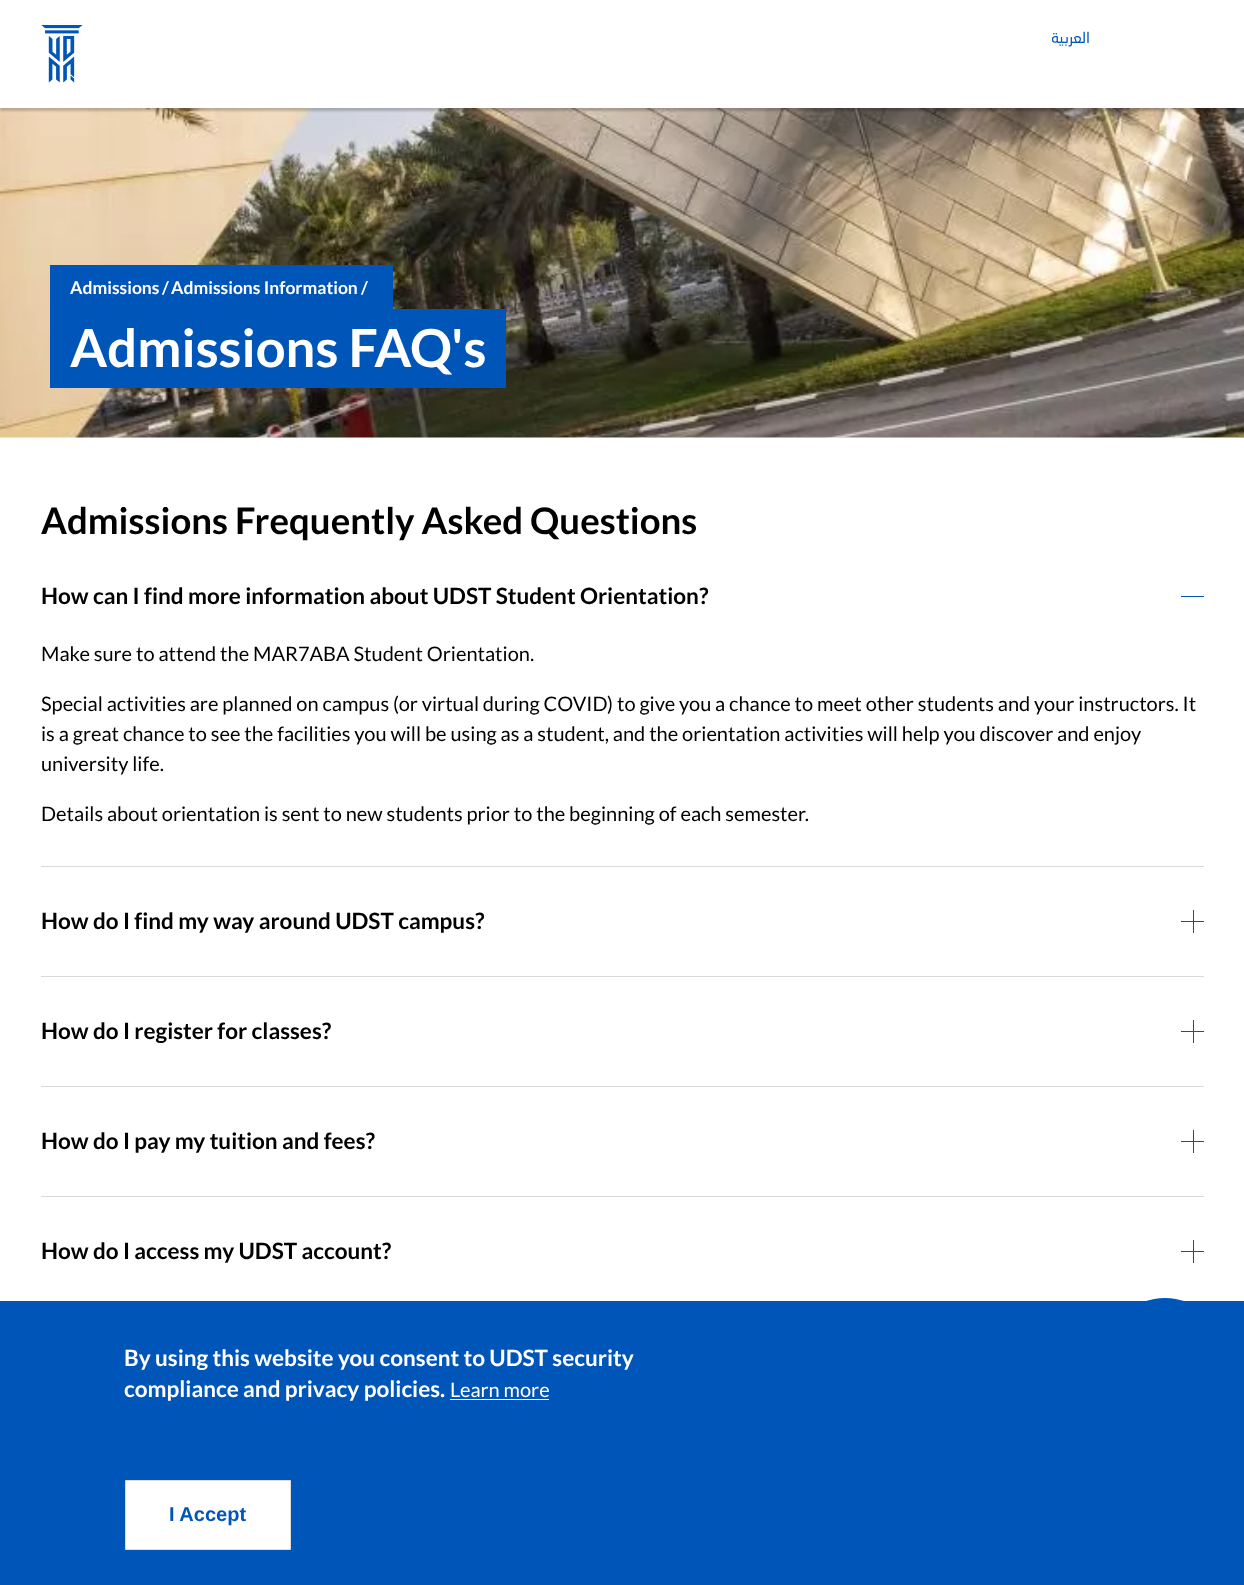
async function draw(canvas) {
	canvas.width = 1244;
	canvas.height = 1585;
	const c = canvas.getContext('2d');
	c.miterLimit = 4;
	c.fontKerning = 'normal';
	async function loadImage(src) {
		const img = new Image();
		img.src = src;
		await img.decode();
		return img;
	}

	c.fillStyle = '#fff';
	c.fillRect(0, 0, 1244, 1585);
	c.drawImage(await loadImage('img2.png'), 0, 108, 1244, 330);
	c.fillStyle = '#00000033';
	c.filter = 'blur(1px)';
	c.beginPath();
	c.rect(0, 4, 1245, 107);
	c.fill();
	c.filter = 'none';
	c.fillStyle = '#fff';
	c.fillRect(0, 2, 1244, 106);
	c.drawImage(await loadImage('img1.png'), 41, 25, 42, 58);
	c.direction = 'rtl';
	c.font = '15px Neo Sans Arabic';
	c.fillStyle = '#0055b8';
	c.fillText('العربية', 1090, 43);
	c.fillRect(50, 265, 343, 44);
	c.direction = 'ltr';
	c.font = 'bold 17.5px Lato';
	c.fillStyle = '#fff';
	for (const [text, x, y] of [
		['Admissions', 70, 294],
		['/', 162, 294],
		['Admissions Information', 171, 294],
		['/', 361, 294],
	]) {
		c.fillText(text, x, y);
	}
	c.fillStyle = '#0055b8';
	c.fillRect(50, 309, 456, 79);
	c.font = 'bold 52.5px Lato';
	c.fillStyle = '#fff';
	c.fillText('Admissions FAQ\'s', 70, 367);
	c.font = 'bold 36.6px Lato';
	c.fillStyle = '#000';
	c.fillText('Admissions Frequently Asked Questions', 41, 534);
	c.fillStyle = '#d9d9d6';
	c.fillRect(41, 866, 1163, 1);
	c.font = 'bold 22.5px Lato';
	c.fillStyle = '#000';
	c.fillText('How can I find more information about UDST Student Orientation?', 41, 604);
	c.fillStyle = '#0055b8';
	c.fillRect(1181, 596, 23, 1);
	c.font = '20px Lato';
	c.fillStyle = '#000';
	for (const [text, x, y] of [
		['Make sure to attend the MAR7ABA Student Orientation.', 41, 661],
		['Special activities are planned on campus (or virtual during COVID) to give you a chance to meet other students and your instructors. It', 41, 711],
		['is a great chance to see the facilities you will be using as a student, and the orientation activities will help you discover and enjoy', 41, 741],
		['university life.', 41, 771],
		['Details about orientation is sent to new students prior to the beginning of each semester.', 41, 821],
	]) {
		c.fillText(text, x, y);
	}
	c.fillStyle = '#d9d9d6';
	c.fillRect(41, 976, 1163, 1);
	c.font = 'bold 22.5px Lato';
	c.fillStyle = '#000';
	c.fillText('How do I find my way around UDST campus?', 41, 929);
	for (const [x, y, w, h, color] of [
		[1193, 910, 1, 23, '#0055b8'],
		[1181, 921, 23, 1, '#0055b8'],
		[41, 1086, 1163, 1, '#d9d9d6'],
	]) {
		c.fillStyle = color;
		c.fillRect(x, y, w, h);
	}
	c.fillStyle = '#000';
	c.fillText('How do I register for classes?', 41, 1039);
	for (const [x, y, w, h, color] of [
		[1193, 1020, 1, 23, '#0055b8'],
		[1181, 1031, 23, 1, '#0055b8'],
		[41, 1196, 1163, 1, '#d9d9d6'],
	]) {
		c.fillStyle = color;
		c.fillRect(x, y, w, h);
	}
	c.fillStyle = '#000';
	c.fillText('How do I pay my tuition and fees?', 41, 1149);
	c.fillStyle = '#0055b8';
	c.fillRect(1193, 1130, 1, 23);
	c.fillRect(1181, 1141, 23, 1);
	c.fillStyle = '#000';
	c.fillText('How do I access my UDST account?', 41, 1259);
	c.fillStyle = '#0055b8';
	c.fillRect(1193, 1240, 1, 23);
	c.fillRect(1181, 1251, 23, 1);
	c.beginPath();
	c.arc(1165, 1353, 55, 0, 2 * Math.PI);
	c.fill();
	c.fillRect(0, 1301, 1244, 284);
	c.fillStyle = '#fff';
	c.fillText('By using this website you consent to UDST security', 124, 1366);
	c.fillText('compliance and privacy policies.', 124, 1397);
	c.font = '20px Lato';
	c.fillText('Learn more', 450, 1397);
	c.fillRect(450, 1399, 99, 1);
	c.beginPath();
	c.rect(125.5, 1480.5, 165, 69);
	c.fill();
	c.strokeStyle = '#dcdcdc';
	c.stroke();
	c.font = 'bold 20px Liberation Sans';
	c.fillStyle = '#0055b8';
	c.fillText('I Accept', 169, 1521);
}

draw(document.querySelector('canvas'));
